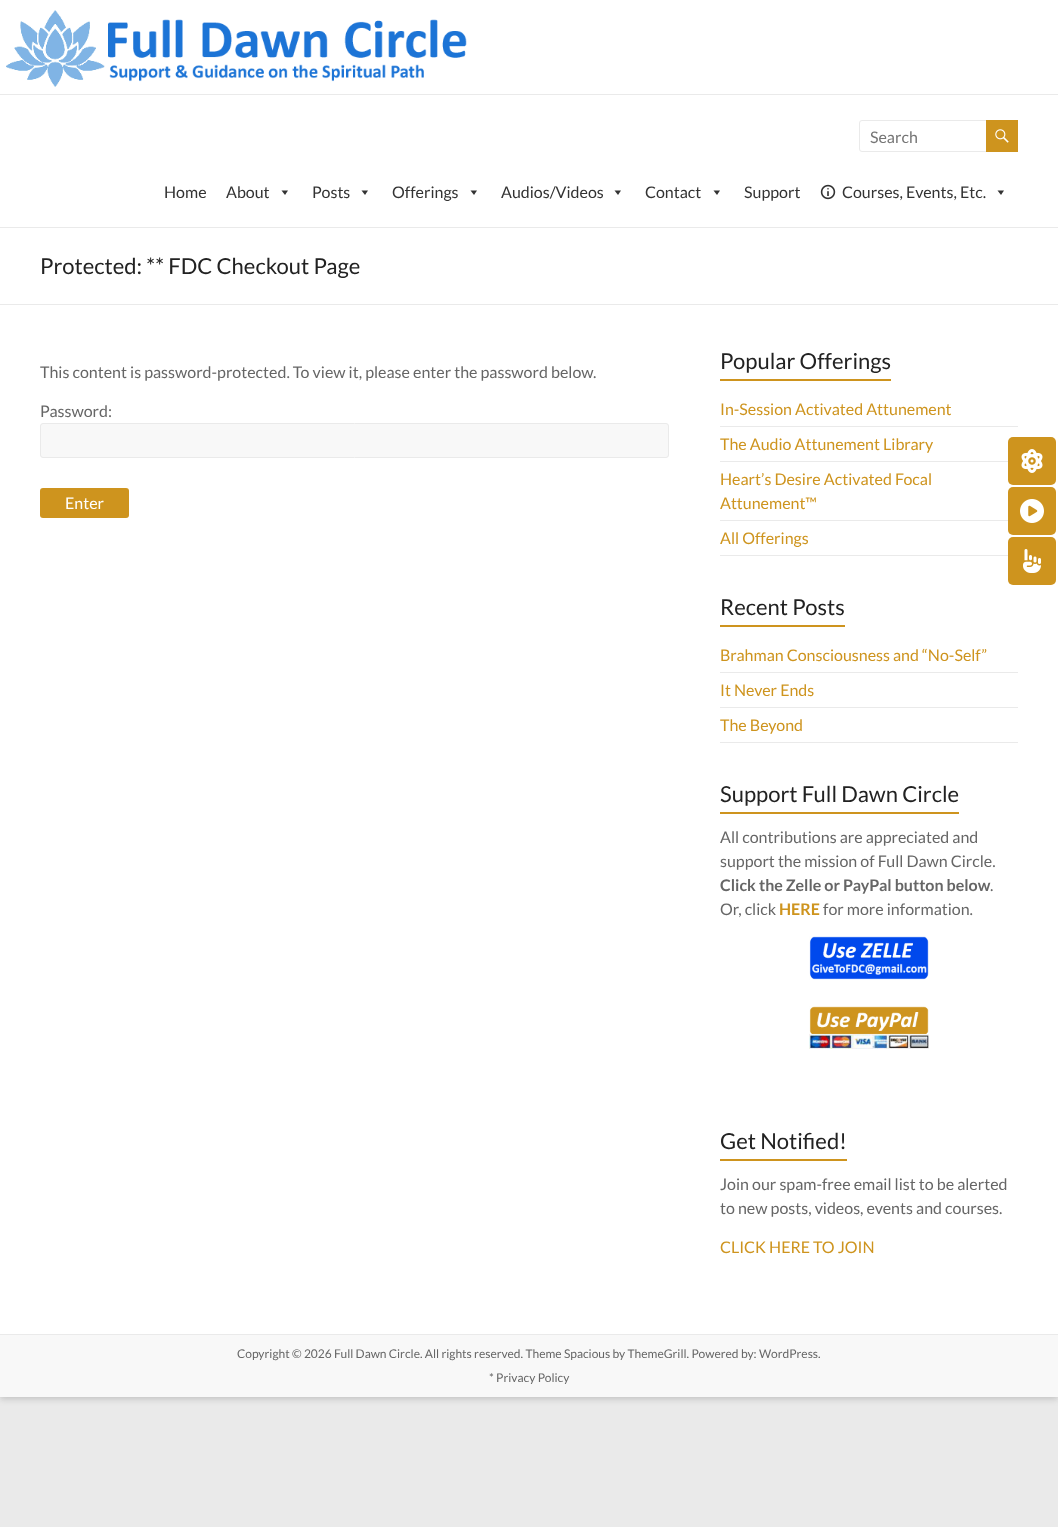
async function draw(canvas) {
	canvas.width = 1058;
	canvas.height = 1527;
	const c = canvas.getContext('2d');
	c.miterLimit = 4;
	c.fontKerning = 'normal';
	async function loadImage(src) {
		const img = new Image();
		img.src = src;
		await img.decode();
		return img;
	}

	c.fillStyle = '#eaeaea';
	c.fillRect(0, 0, 1058, 1527);
	c.fillStyle = '#6464644d';
	c.filter = 'blur(3px)';
	c.beginPath();
	c.rect(0, 2, 1058, 1397);
	c.fill();
	c.filter = 'none';
	c.fillStyle = '#fff';
	c.fillRect(0, 0, 1058, 1334);
	c.drawImage(await loadImage('img1.png'), 6, 10, 461, 77);
	c.fillStyle = '#eaeaea';
	c.fillRect(0, 94, 1058, 1);
	c.fillRect(0, 227, 1058, 1);
	c.beginPath();
	c.roundRect(859.5, 120.5, 129, 31, 2.5);
	c.strokeStyle = '#eaeaea';
	c.stroke();
	c.font = '16px Lato';
	c.fillStyle = '#757575';
	c.fillText('Search', 870, 143);
	c.fillStyle = '#ce941e';
	c.fillRect(986, 120, 32, 32);
	c.drawImage(await loadImage('img2.png'), 995, 129, 14, 14);
	c.fillStyle = '#333';
	c.fillText('Home', 164, 198);
	c.fillText('About', 226, 198);
	c.beginPath();
	c.moveTo(288, 190.5);
	c.lineTo(285, 195);
	c.lineTo(281.5, 190.5);
	c.closePath();
	c.fill();
	c.fillText('Posts', 312, 198);
	c.beginPath();
	c.moveTo(368, 190.5);
	c.lineTo(365, 195);
	c.lineTo(361.5, 190.5);
	c.closePath();
	c.fill();
	c.fillText('Offerings', 392, 198);
	c.beginPath();
	c.moveTo(477, 190.5);
	c.lineTo(474, 195);
	c.lineTo(470.5, 190.5);
	c.closePath();
	c.fill();
	c.fillText('Audios/Videos', 501, 198);
	c.beginPath();
	c.moveTo(621, 190.5);
	c.lineTo(618, 195);
	c.lineTo(614.5, 190.5);
	c.closePath();
	c.fill();
	c.fillText('Contact', 645, 198);
	c.beginPath();
	c.moveTo(720, 190.5);
	c.lineTo(717, 195);
	c.lineTo(713.5, 190.5);
	c.closePath();
	c.fill();
	c.fillText('Support', 744, 198);
	c.drawImage(await loadImage('img3.png'), 820, 184, 16, 16);
	c.fillText('Courses, Events, Etc.', 842, 198);
	c.beginPath();
	c.moveTo(1004, 190.5);
	c.lineTo(1001, 195);
	c.lineTo(997.5, 190.5);
	c.closePath();
	c.fill();
	c.fillStyle = '#eaeaea';
	c.fillRect(0, 304, 1058, 1);
	c.font = '22px Lato';
	c.fillStyle = '#222';
	c.fillText('Protected: ** FDC Checkout Page', 40, 274);
	c.font = '16px Lato';
	c.fillStyle = '#666';
	c.fillText('This content is password-protected. To view it, please enter the password below.', 40, 378);
	c.fillText('Password:', 40, 417);
	c.fillStyle = '#f8f8f8';
	c.beginPath();
	c.roundRect(40.5, 423.5, 628, 34, 2.5);
	c.fill();
	c.stroke();
	c.fillStyle = '#ce941e';
	c.beginPath();
	c.roundRect(40, 488, 89, 30, 3);
	c.fill();
	c.fillStyle = '#fff';
	c.fillText('Enter', 65, 509);
	c.font = '22px Lato';
	c.fillStyle = '#222';
	c.fillText('Popular Offerings', 720, 369);
	c.fillStyle = '#ce941e';
	c.fillRect(720, 379, 171, 2);
	c.fillStyle = '#eaeaea';
	c.fillRect(720, 426, 298, 1);
	c.font = '16px Lato';
	c.fillStyle = '#ce941e';
	c.fillText('In-Session Activated Attunement', 720, 415);
	c.fillStyle = '#eaeaea';
	c.fillRect(720, 461, 288, 1);
	c.fillStyle = '#ce941e';
	c.fillText('The Audio Attunement Library', 720, 450);
	c.fillStyle = '#eaeaea';
	c.fillRect(720, 520, 288, 1);
	c.fillStyle = '#ce941e';
	c.fillText('Heart’s Desire Activated Focal', 720, 485);
	c.fillText('Attunement™', 720, 509);
	c.fillStyle = '#eaeaea';
	c.fillRect(720, 555, 288, 1);
	c.fillStyle = '#ce941e';
	c.fillText('All Offerings', 720, 544);
	c.font = '22px Lato';
	c.fillStyle = '#222';
	c.fillText('Recent Posts', 720, 615);
	c.fillStyle = '#ce941e';
	c.fillRect(720, 625, 125, 2);
	c.fillStyle = '#eaeaea';
	c.fillRect(720, 672, 298, 1);
	c.font = '16px Lato';
	c.fillStyle = '#ce941e';
	c.fillText('Brahman Consciousness and “No-Self”', 720, 661);
	c.fillStyle = '#eaeaea';
	c.fillRect(720, 707, 298, 1);
	c.fillStyle = '#ce941e';
	c.fillText('It Never Ends', 720, 696);
	c.fillStyle = '#eaeaea';
	c.fillRect(720, 742, 298, 1);
	c.fillStyle = '#ce941e';
	c.fillText('The Beyond', 720, 731);
	c.font = '22px Lato';
	c.fillStyle = '#222';
	c.fillText('Support Full Dawn Circle', 720, 802);
	c.fillStyle = '#ce941e';
	c.fillRect(720, 812, 239, 2);
	c.font = '16px Lato';
	c.fillStyle = '#666';
	c.fillText('All contributions are appreciated and', 720, 843);
	c.fillText('support the mission of Full Dawn Circle.', 720, 867);
	c.font = 'bold 16px Lato';
	c.fillText('Click the Zelle or PayPal button below', 720, 891);
	c.font = '16px Lato';
	c.fillText('.', 990, 891);
	c.fillText('Or, click', 720, 915);
	c.font = 'bold 16px Lato';
	c.fillStyle = '#ce941e';
	c.fillText('HERE', 779, 915);
	c.font = '16px Lato';
	c.fillStyle = '#666';
	c.fillText('for more information.', 823, 915);
	c.drawImage(await loadImage('img4.png'), 809, 936, 120, 44);
	c.drawImage(await loadImage('img5.png'), 809, 1006, 120, 43);
	c.font = '22px Lato';
	c.fillStyle = '#222';
	c.fillText('Get Notified!', 720, 1149);
	c.fillStyle = '#ce941e';
	c.fillRect(720, 1159, 127, 2);
	c.font = '16px Lato';
	c.fillStyle = '#666';
	c.fillText('Join our spam-free email list to be alerted', 720, 1190);
	c.fillText('to new posts, videos, events and courses.', 720, 1214);
	c.fillStyle = '#ce941e';
	c.fillText('CLICK HERE TO JOIN', 720, 1253);
	c.fillStyle = '#f8f8f8';
	c.fillRect(0, 1335, 1058, 62);
	c.fillStyle = '#eaeaea';
	c.fillRect(0, 1334, 1058, 1);
	c.font = '12px Lato';
	c.fillStyle = '#666';
	c.fillText('Copyright © 2026 Full Dawn Circle. All rights reserved. Theme Spacious by ThemeGrill. Powered by: WordPress.', 237, 1358);
	c.fillText('* Privacy Policy', 489, 1382);
	c.fillStyle = '#ce941e';
	c.beginPath();
	c.roundRect(1008, 437, 48, 48, 5);
	c.fill();
	c.drawImage(await loadImage('img6.png'), 1021, 449, 22, 24);
	c.beginPath();
	c.roundRect(1008, 487, 48, 48, 5);
	c.fill();
	c.drawImage(await loadImage('img7.png'), 1020, 499, 24, 24);
	c.beginPath();
	c.roundRect(1008, 537, 48, 48, 5);
	c.fill();
	c.drawImage(await loadImage('img8.png'), 1023, 549, 18, 24);
}

draw(document.querySelector('canvas'));
